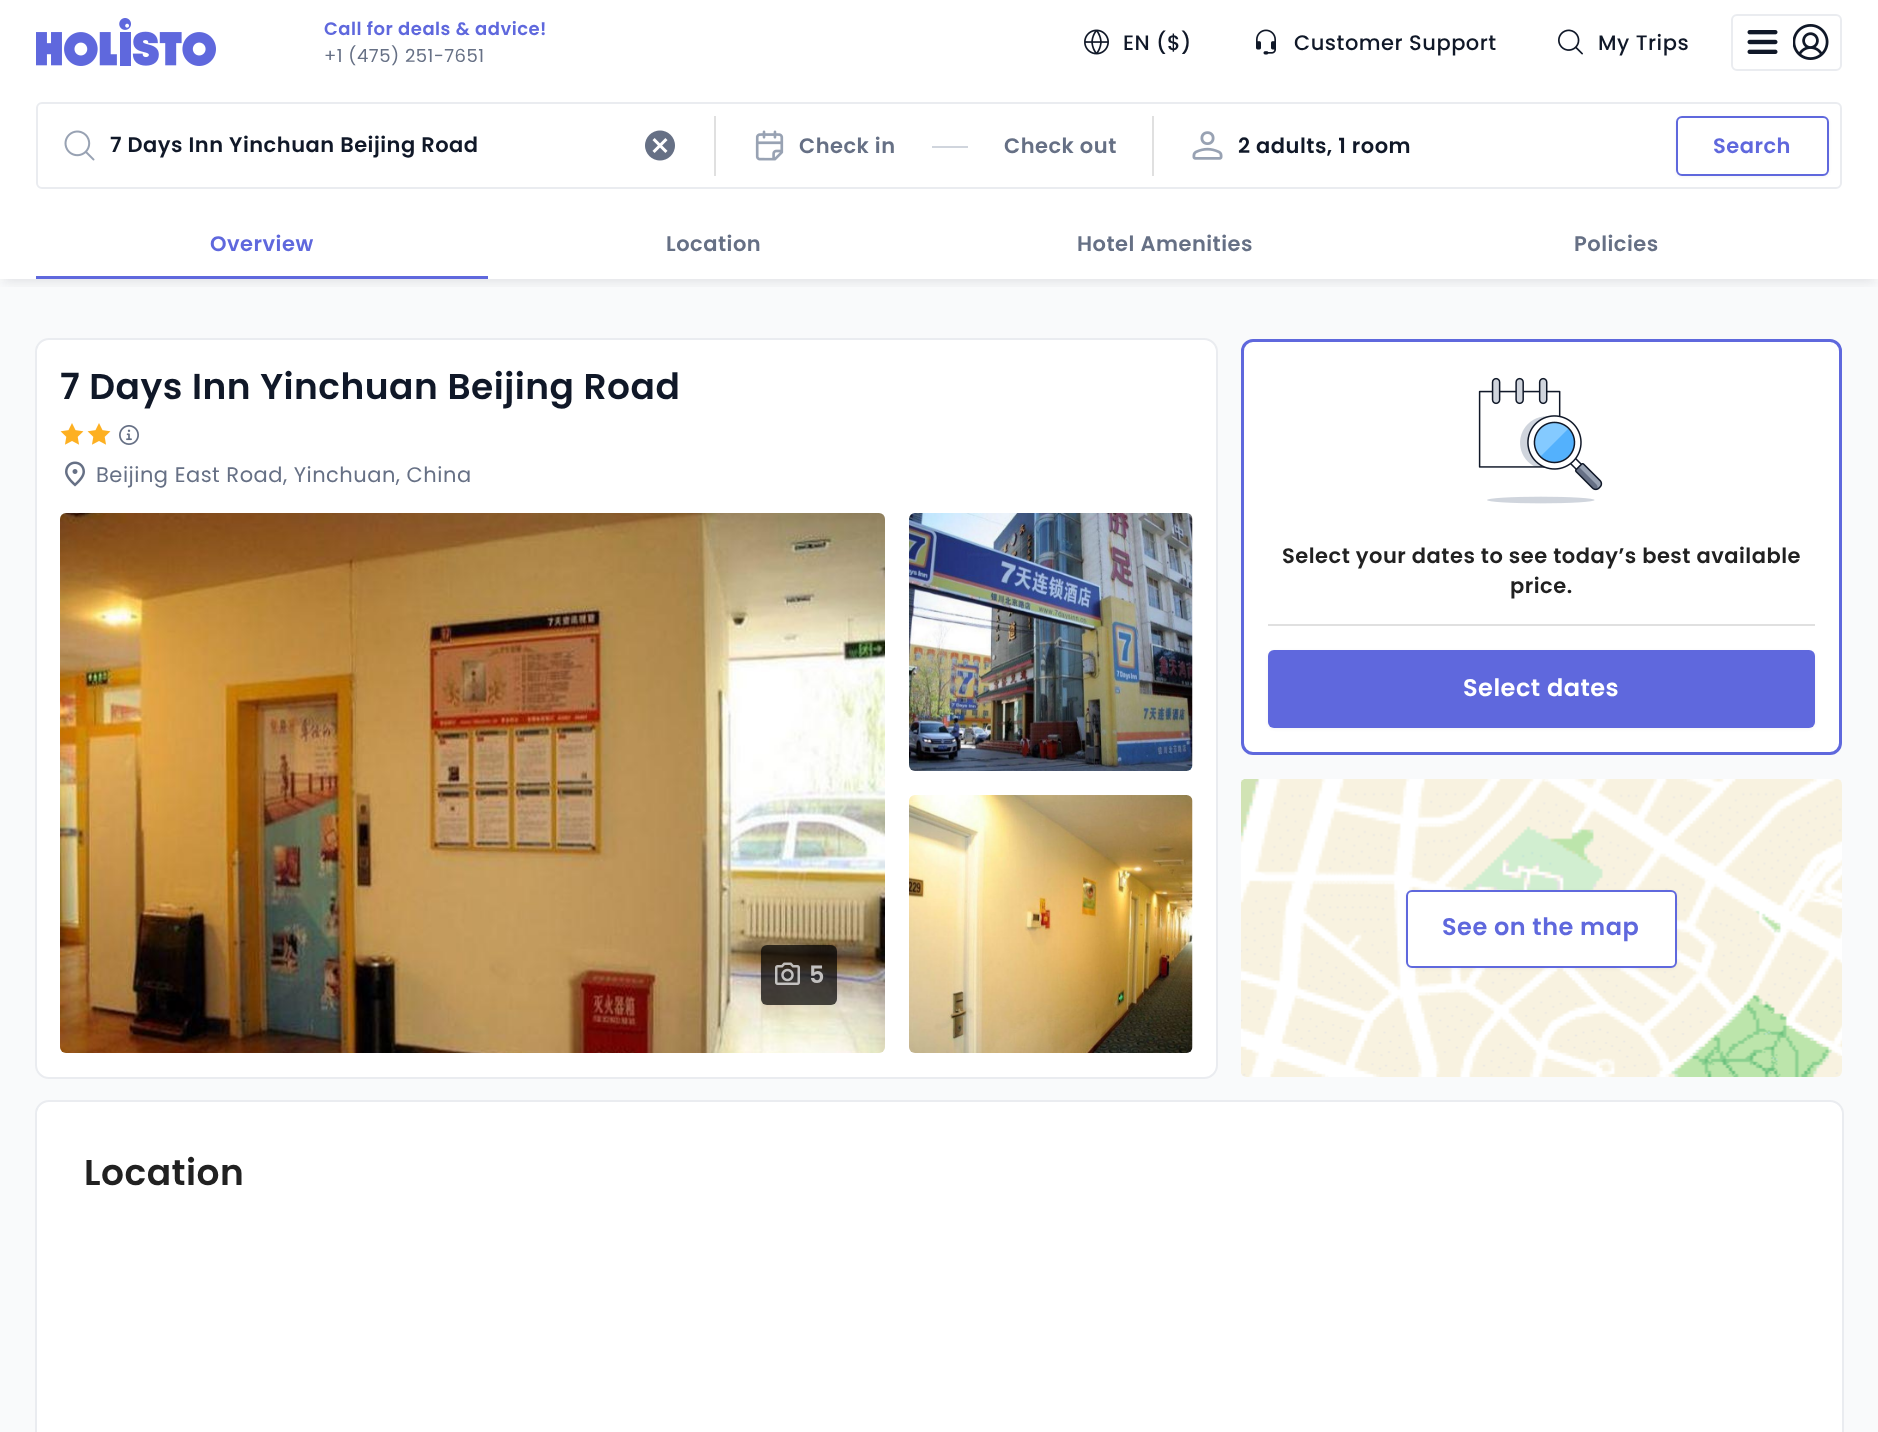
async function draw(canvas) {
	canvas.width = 1878;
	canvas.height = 1432;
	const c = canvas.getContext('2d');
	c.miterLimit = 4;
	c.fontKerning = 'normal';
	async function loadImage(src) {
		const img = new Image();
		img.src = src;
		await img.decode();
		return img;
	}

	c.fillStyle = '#fff';
	c.fillRect(0, 0, 1878, 1432);
	c.fillStyle = '#f9fafb';
	c.fillRect(0, 279, 1878, 1153);
	c.save();
	c.beginPath();
	c.rect(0, 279, 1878, 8);
	c.clip();
	c.fillStyle = '#1018281a';
	c.filter = 'blur(6px)';
	c.beginPath();
	c.rect(3, 9, 1872, 273);
	c.fill();
	c.filter = 'none';
	c.restore();
	c.drawImage(await loadImage('img1.png'), 36, 18, 180, 48);
	c.letterSpacing = '0.5px';
	c.font = '600 18px Poppins';
	c.fillStyle = '#5f68dd';
	c.fillText('Call for deals & advice!', 324, 35);
	c.font = '18px Poppins';
	c.fillStyle = '#667085';
	c.fillText('+1 (475) 251-7651', 324, 62);
	c.drawImage(await loadImage('img2.png'), 1084, 29, 25, 26);
	c.font = '500 21px Poppins';
	c.fillStyle = '#101828';
	c.fillText('EN ($)', 1123, 50);
	c.drawImage(await loadImage('img3.png'), 1256, 29, 20, 26);
	c.fillText('Customer Support', 1294, 50);
	c.drawImage(await loadImage('img4.png'), 1558, 29, 25, 26);
	c.fillText('My Trips', 1598, 50);
	c.beginPath();
	c.roundRect(1732, 15, 109, 55, 5);
	c.strokeStyle = '#eaecf0';
	c.lineWidth = 2;
	c.stroke();
	c.drawImage(await loadImage('img5.png'), 1747, 30, 31, 24);
	c.drawImage(await loadImage('img6.png'), 1793, 24, 36, 36);
	c.beginPath();
	c.roundRect(37, 103, 1804, 85, 5);
	c.stroke();
	c.drawImage(await loadImage('img7.png'), 64, 130, 31, 31);
	c.font = '600 21px Poppins';
	c.fillText('7 Days Inn Yinchuan Beijing Road', 110, 152);
	c.drawImage(await loadImage('img8.png'), 645, 130, 30, 31);
	c.fillStyle = '#e0e0e0';
	c.fillRect(714, 116, 2, 60);
	c.drawImage(await loadImage('img9.png'), 755, 130, 29, 31);
	c.fillStyle = '#667085';
	c.fillText('Check in', 799, 153);
	c.fillStyle = '#d0d5dd';
	c.fillRect(932, 146, 36, 2);
	c.fillStyle = '#667085';
	c.fillText('Check out', 1004, 153);
	c.fillStyle = '#e0e0e0';
	c.fillRect(1152, 116, 2, 60);
	c.drawImage(await loadImage('img10.png'), 1192, 131, 31, 29);
	c.fillStyle = '#101828';
	c.fillText('2 adults, 1 room', 1238, 153);
	c.fillStyle = '#1018280d';
	c.filter = 'blur(1.5px)';
	c.beginPath();
	c.roundRect(1676, 117, 153, 60, 6);
	c.fill();
	c.filter = 'none';
	c.fillStyle = '#fff';
	c.beginPath();
	c.roundRect(1677, 117, 151, 58, 5);
	c.fill();
	c.strokeStyle = '#5f68dd';
	c.stroke();
	c.fillStyle = '#5f68dd';
	c.fillText('Search', 1713, 153);
	c.fillText('Overview', 210, 251);
	c.fillRect(36, 276, 452, 3);
	c.fillStyle = '#667085';
	for (const [text, x, y] of [
		['Location', 666, 251],
		['Hotel Amenities', 1077, 251],
		['Policies', 1574, 251],
	]) {
		c.fillText(text, x, y);
	}
	c.fillStyle = '#fff';
	c.beginPath();
	c.roundRect(36, 339, 1181, 738, 12);
	c.fill();
	c.beginPath();
	c.roundRect(36, 339, 1181, 739, 13);
	c.strokeStyle = '#eaecf0';
	c.stroke();
	c.font = '600 36px Poppins';
	c.fillStyle = '#101828';
	c.fillText('7 Days Inn Yinchuan Beijing Road', 60, 399);
	c.drawImage(await loadImage('img11.png'), 60, 423, 24, 22);
	c.drawImage(await loadImage('img11.png'), 87, 423, 24, 22);
	c.drawImage(await loadImage('img12.png'), 119, 425, 20, 20);
	c.drawImage(await loadImage('img13.png'), 65, 461, 20, 26);
	c.font = '21px Poppins';
	c.fillStyle = '#667085';
	c.fillText('Beijing East Road, Yinchuan, China', 96, 482);
	c.drawImage(await loadImage('img14.png'), 60, 513, 825, 540);
	c.fillStyle = '#000000b3';
	c.beginPath();
	c.roundRect(761, 945, 76, 60, 6);
	c.fill();
	c.drawImage(await loadImage('img15.png'), 775, 962, 25, 23);
	c.font = '600 24px Poppins';
	c.fillStyle = '#c2c0bf';
	c.fillText('5', 809, 983);
	c.drawImage(await loadImage('img16.png'), 909, 513, 284, 258);
	c.drawImage(await loadImage('img17.png'), 909, 795, 284, 258);
	c.fillStyle = '#fff';
	c.beginPath();
	c.roundRect(1242.5, 340.5, 598, 413, 10.5);
	c.fill();
	c.strokeStyle = '#5f68dd';
	c.lineWidth = 3;
	c.stroke();
	c.drawImage(await loadImage('img18.png'), 1478, 377, 125, 127);
	c.font = '600 21px Poppins';
	c.fillStyle = '#212121';
	c.fillText('Select your dates to see today’s best available', 1282, 563);
	c.fillText('price.', 1510, 593);
	c.fillStyle = '#e0e0e0';
	c.fillRect(1268, 624, 547, 2);
	c.fillStyle = '#1018280d';
	c.filter = 'blur(1.5px)';
	c.beginPath();
	c.roundRect(1268, 651, 547, 78, 6);
	c.fill();
	c.filter = 'none';
	c.fillStyle = '#5f68dd';
	c.beginPath();
	c.roundRect(1268, 650, 547, 78, 6);
	c.fill();
	c.font = '600 24px Poppins';
	c.fillStyle = '#fff';
	c.fillText('Select dates', 1463, 696);
	c.drawImage(await loadImage('img19.png'), 1241, 779, 601, 298);
	c.fillStyle = '#1018280d';
	c.filter = 'blur(1.5px)';
	c.beginPath();
	c.roundRect(1406, 891, 271, 78, 6);
	c.fill();
	c.filter = 'none';
	c.fillStyle = '#fff';
	c.beginPath();
	c.roundRect(1407, 891, 269, 76, 5);
	c.fill();
	c.lineWidth = 2;
	c.stroke();
	c.fillStyle = '#5f68dd';
	c.fillText('See on the map', 1442, 935);
	c.fillStyle = '#fff';
	c.beginPath();
	c.roundRect(36, 1101, 1806, 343, 12);
	c.fill();
	c.beginPath();
	c.roundRect(36, 1101, 1807, 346, 13);
	c.strokeStyle = '#eaecf0';
	c.stroke();
	c.font = '600 36px Poppins';
	c.fillStyle = '#212121';
	c.fillText('Location', 84, 1185);
}

draw(document.querySelector('canvas'));
